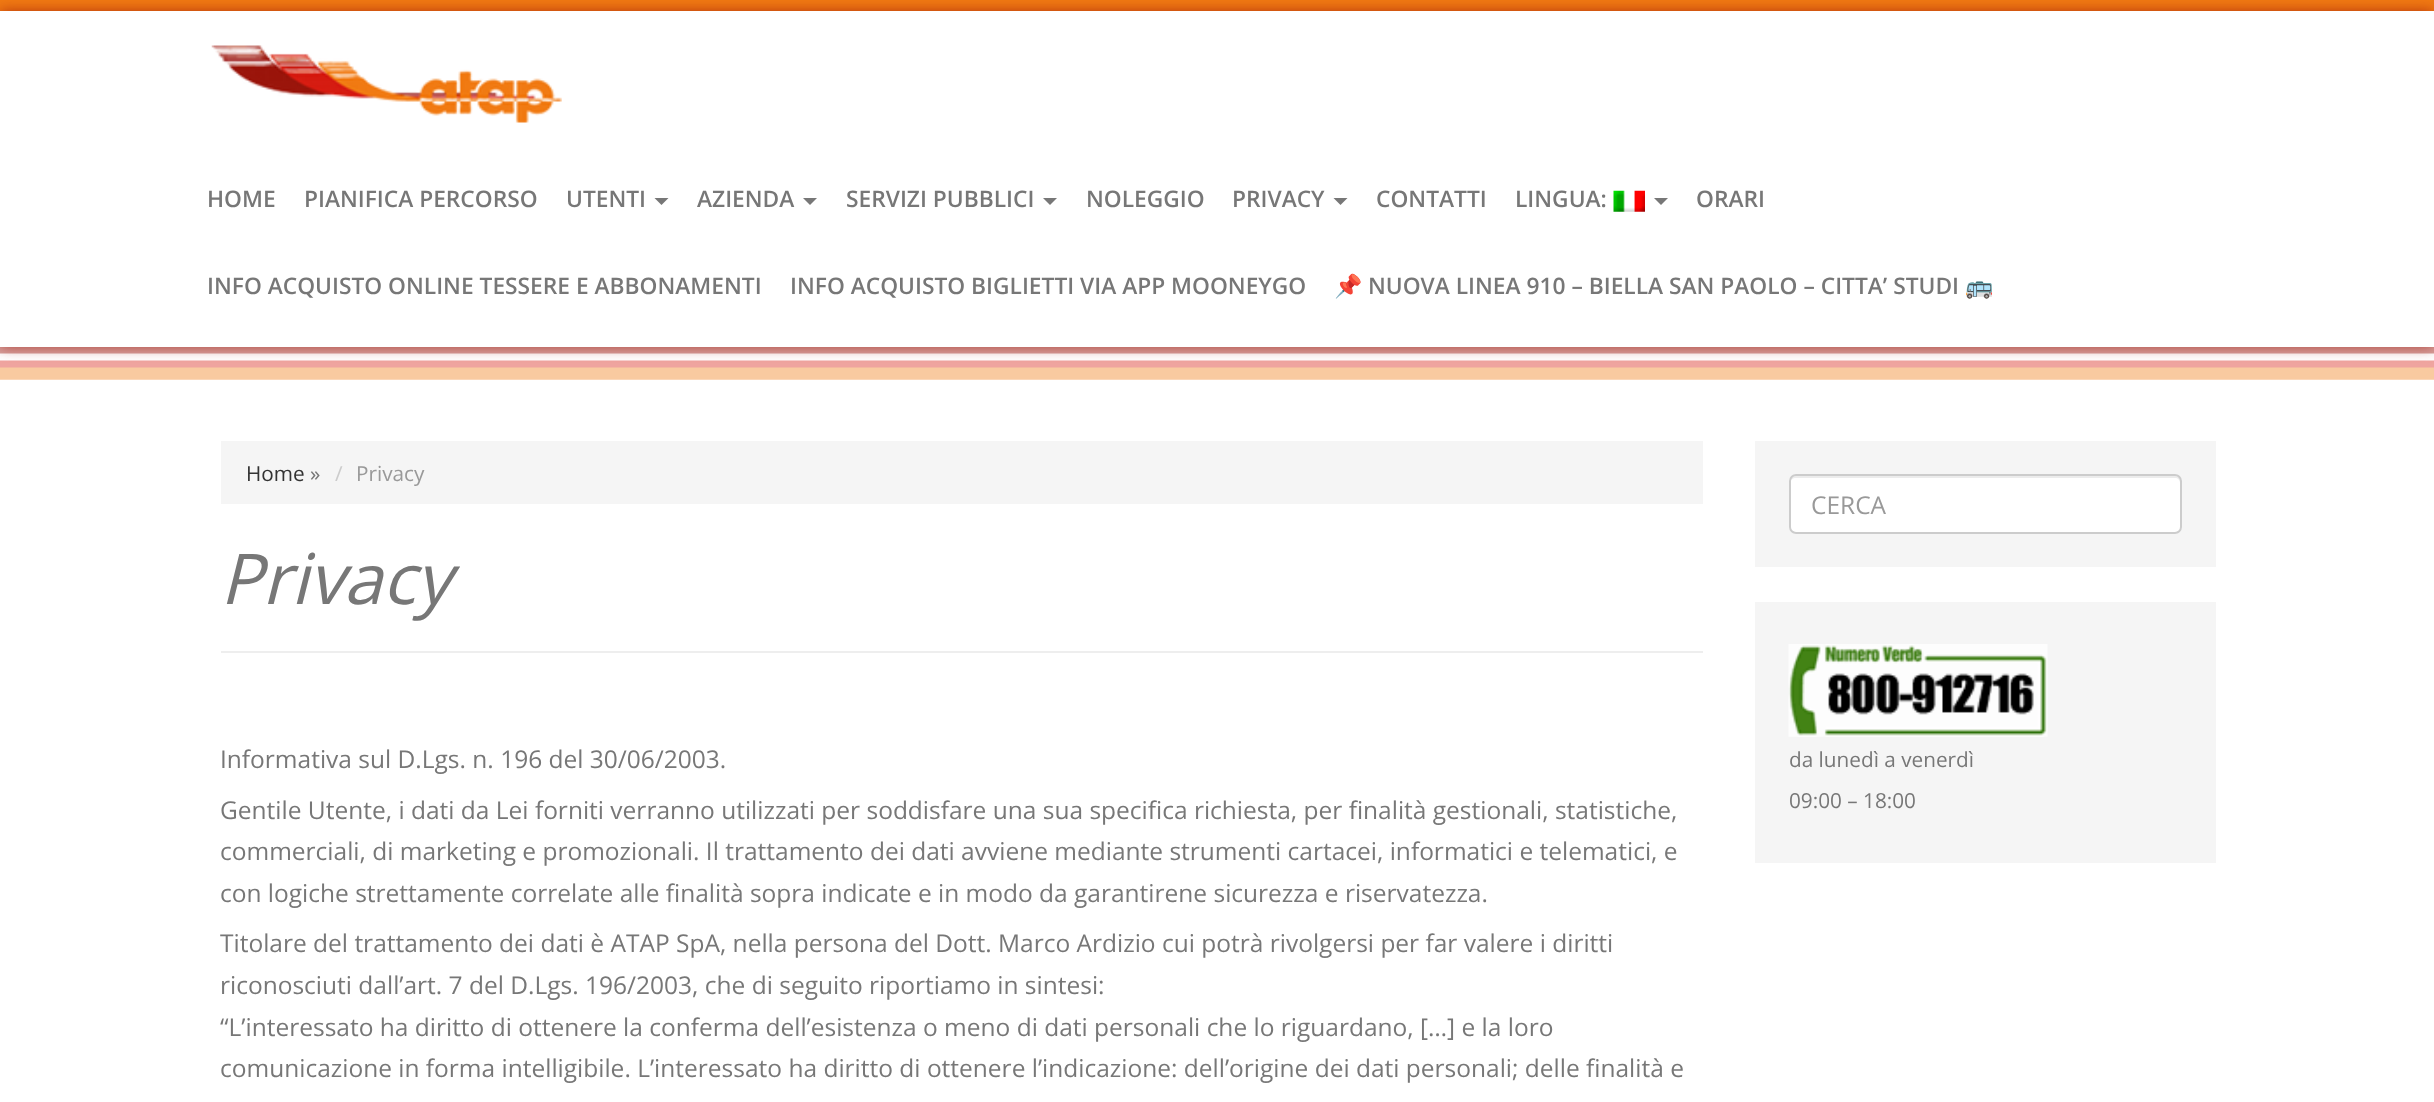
async function draw(canvas) {
	canvas.width = 2434;
	canvas.height = 1102;
	const c = canvas.getContext('2d');
	c.miterLimit = 4;
	c.fontKerning = 'normal';
	async function loadImage(src) {
		const img = new Image();
		img.src = src;
		await img.decode();
		return img;
	}

	c.fillStyle = '#fff';
	c.fillRect(0, 0, 2434, 1102);
	c.fillStyle = '#f17a12';
	c.fillRect(0, 0, 2434, 11);
	c.drawImage(await loadImage('img3.png'), 0, 347, 2434, 33);
	c.fillStyle = '#9b150bb3';
	c.filter = 'blur(7px)';
	c.beginPath();
	c.rect(0, 11, 2434, 336);
	c.fill();
	c.filter = 'none';
	c.fillStyle = '#fff';
	c.fillRect(0, 11, 2434, 336);
	c.drawImage(await loadImage('img1.png'), 211, 45, 351, 78);
	c.font = '600 22.75px Open Sans';
	c.fillStyle = '#777';
	for (const [text, x, y] of [
		['HOME', 207, 207],
		['PIANIFICA PERCORSO', 304, 207],
		['UTENTI', 566, 207],
	]) {
		c.fillText(text, x, y);
	}
	c.beginPath();
	c.moveTo(654.5, 198);
	c.lineTo(668.5, 198);
	c.lineTo(661.5, 205);
	c.closePath();
	c.fill();
	c.fillText('AZIENDA', 697, 207);
	c.beginPath();
	c.moveTo(803, 198);
	c.lineTo(817, 198);
	c.lineTo(810, 205);
	c.closePath();
	c.fill();
	c.fillText('SERVIZI PUBBLICI', 846, 207);
	c.beginPath();
	c.moveTo(1043, 198);
	c.lineTo(1057, 198);
	c.lineTo(1050, 205);
	c.closePath();
	c.fill();
	c.fillText('NOLEGGIO', 1086, 207);
	c.fillText('PRIVACY', 1232, 207);
	c.beginPath();
	c.moveTo(1333.5, 198);
	c.lineTo(1347.5, 198);
	c.lineTo(1340.5, 205);
	c.closePath();
	c.fill();
	c.fillText('CONTATTI', 1376, 207);
	c.fillText('LINGUA:', 1515, 207);
	c.drawImage(await loadImage('img2.png'), 1613, 190, 32, 22);
	c.beginPath();
	c.moveTo(1654, 198);
	c.lineTo(1668, 198);
	c.lineTo(1661, 205);
	c.closePath();
	c.fill();
	for (const [text, x, y] of [
		['ORARI', 1696, 207],
		['INFO ACQUISTO ONLINE TESSERE E ABBONAMENTI', 207, 294],
		['INFO ACQUISTO BIGLIETTI VIA APP MOONEYGO', 790, 294],
	]) {
		c.fillText(text, x, y);
	}
	c.font = 'bold 22.75px Noto Color Emoji';
	c.fillText('📌', 1334, 294);
	c.font = '600 22.75px Open Sans';
	c.fillText('NUOVA LINEA 910 – BIELLA SAN PAOLO – CITTA’ STUDI', 1368, 294);
	c.font = 'bold 22.75px Noto Color Emoji';
	c.fillText('🚌', 1965, 294);
	c.fillStyle = '#f5f5f5';
	c.fillRect(221, 441, 1482, 63);
	c.font = '20.75px Open Sans';
	c.fillStyle = '#333';
	c.fillText('Home', 246, 481);
	c.fillStyle = '#777';
	c.fillText('»', 310, 481);
	c.fillStyle = '#ccc';
	c.fillText('/', 335, 481);
	c.fillStyle = '#999';
	c.fillText('Privacy', 356, 481);
	c.font = 'italic 70px Open Sans';
	c.fillStyle = '#777';
	c.fillText('Privacy', 220, 604);
	c.fillStyle = '#eee';
	c.fillRect(221, 651, 1482, 2);
	c.font = '24.5px Open Sans';
	c.fillStyle = '#777';
	for (const [text, x, y] of [
		['Informativa sul D.Lgs. n. 196 del 30/06/2003.', 220, 768],
		['Gentile Utente, i dati da Lei forniti verranno utilizzati per soddisfare una sua specifica richiesta, per finalità gestionali, statistiche,', 220, 819],
		['commerciali, di marketing e promozionali. Il trattamento dei dati avviene mediante strumenti cartacei, informatici e telematici, e', 220, 860],
		['con logiche strettamente correlate alle finalità sopra indicate e in modo da garantirene sicurezza e riservatezza.', 220, 902],
		['Titolare del trattamento dei dati è ATAP SpA, nella persona del Dott. Marco Ardizio cui potrà rivolgersi per far valere i diritti', 220, 952],
		['riconosciuti dall’art. 7 del D.Lgs. 196/2003, che di seguito riportiamo in sintesi:', 220, 994],
		['“L’interessato ha diritto di ottenere la conferma dell’esistenza o meno di dati personali che lo riguardano, […] e la loro', 220, 1036],
		['comunicazione in forma intelligibile. L’interessato ha diritto di ottenere l’indicazione: dell’origine dei dati personali; delle finalità e', 220, 1077],
	]) {
		c.fillText(text, x, y);
	}
	c.fillStyle = '#f5f5f5';
	c.fillRect(1755, 441, 461, 126);
	c.fillStyle = '#fff';
	c.beginPath();
	c.roundRect(1789, 474, 393, 60, 7);
	c.fill();
	c.fillStyle = '#ececec';
	c.beginPath();
	c.moveTo(1796, 478);
	c.lineTo(2175, 478);
	c.bezierCurveTo(2178, 478, 2180, 480, 2180, 483);
	c.lineTo(2180, 528);
	c.lineTo(2180, 531);
	c.bezierCurveTo(2180, 530, 2181, 528, 2181, 527);
	c.lineTo(2181, 481);
	c.bezierCurveTo(2181, 478, 2179, 476, 2176, 476);
	c.lineTo(1795, 476);
	c.bezierCurveTo(1792, 476, 1790, 478, 1790, 481);
	c.lineTo(1790, 483);
	c.bezierCurveTo(1790, 480, 1793, 478, 1796, 478);
	c.closePath();
	c.fill();
	c.beginPath();
	c.roundRect(1790, 475, 391, 58, 6);
	c.strokeStyle = '#ccc';
	c.lineWidth = 2;
	c.stroke();
	c.fillStyle = '#999';
	c.fillText('CERCA', 1811, 514);
	c.fillStyle = '#f5f5f5';
	c.fillRect(1755, 602, 461, 261);
	c.drawImage(await loadImage('img4.png'), 1788, 644, 260, 93);
	c.font = '20.75px Open Sans';
	c.fillStyle = '#777';
	c.fillText('da lunedì a venerdì', 1789, 767);
	c.fillText('09:00 – 18:00', 1789, 808);
}

draw(document.querySelector('canvas'));
